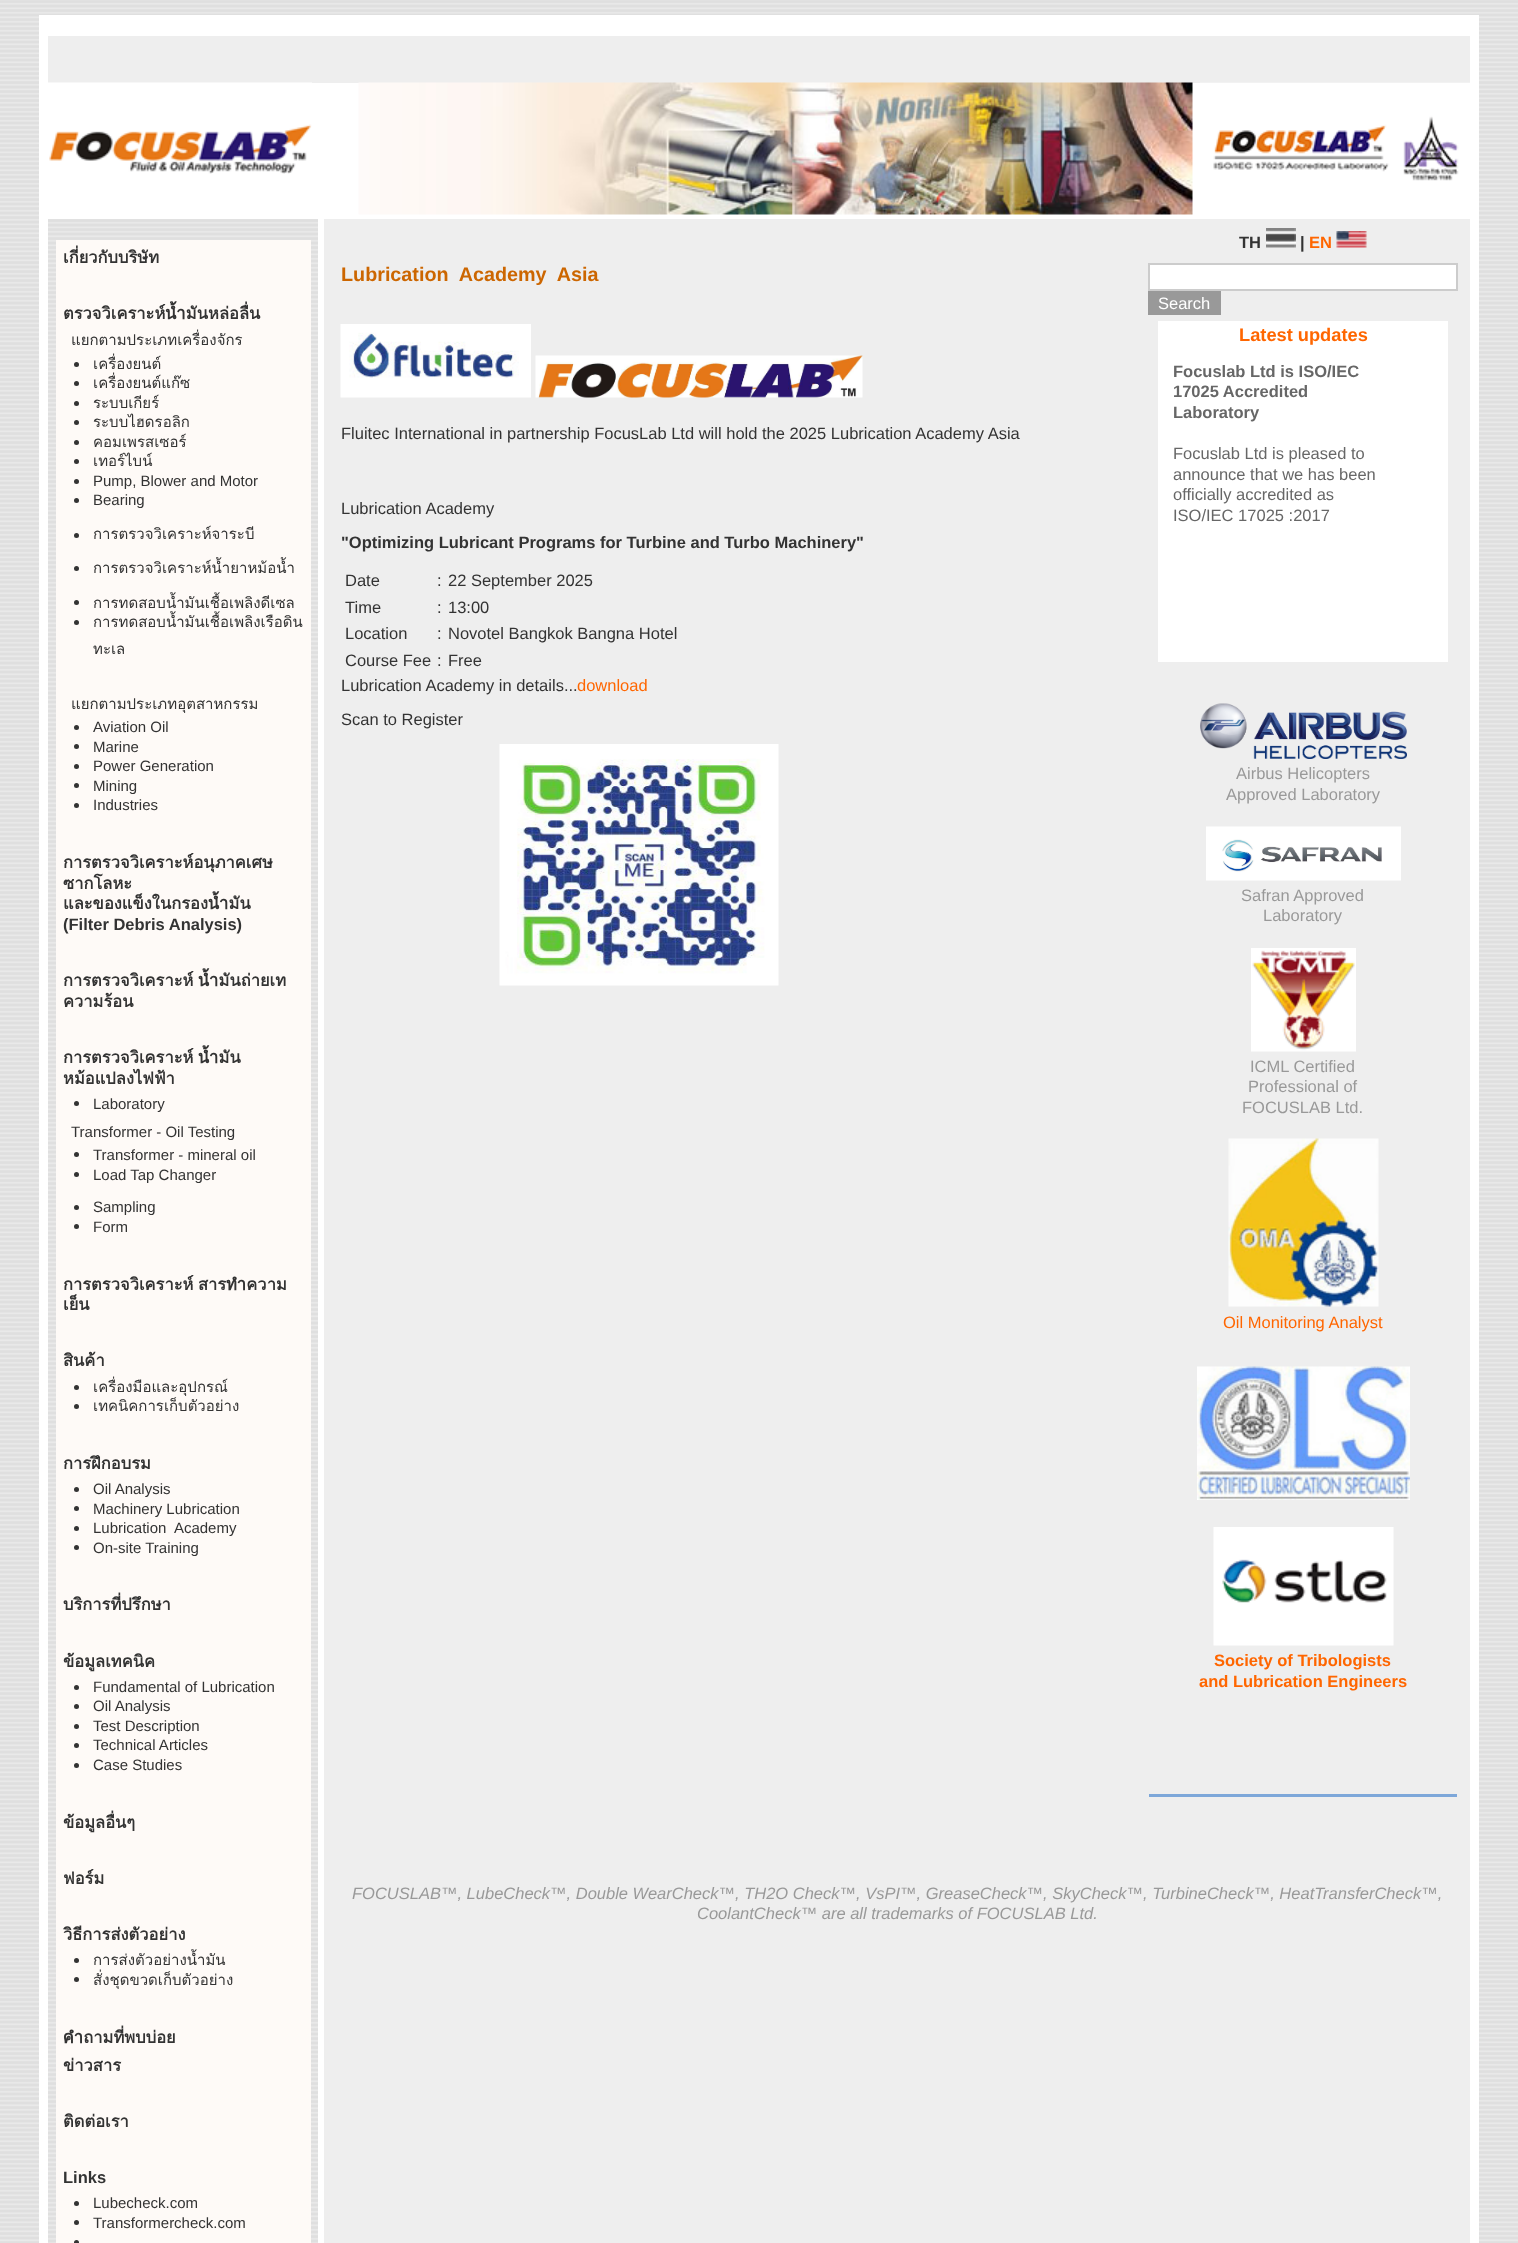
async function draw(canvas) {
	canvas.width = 1518;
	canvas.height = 2243;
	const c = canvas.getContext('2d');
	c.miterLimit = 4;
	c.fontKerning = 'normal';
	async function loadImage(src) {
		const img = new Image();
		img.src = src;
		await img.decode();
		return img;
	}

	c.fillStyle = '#fff';
	c.fillRect(0, 0, 1518, 2243);
	c.drawImage(await loadImage('img1.png'), 0, 0, 1518, 2243);
	for (const [x, y, w, h, color] of [
		[48, 36, 1422, 2207, '#eee'],
		[39, 15, 9, 2228, '#fff'],
		[48, 15, 1422, 21, '#fff'],
		[48, 83, 1422, 136, '#fff'],
	]) {
		c.fillStyle = color;
		c.fillRect(x, y, w, h);
	}
	c.drawImage(await loadImage('img2.png'), 48, 82, 264, 92);
	c.drawImage(await loadImage('img3.png'), 358, 82, 835, 133);
	c.drawImage(await loadImage('img4.png'), 1200, 82, 270, 99);
	c.drawImage(await loadImage('img5.png'), 48, 219, 270, 2024);
	c.fillStyle = '#fefaf7';
	c.fillRect(56, 240, 255, 2003);
	c.font = 'bold 16.5px Loma';
	c.fillStyle = '#333';
	c.fillText('เกี่ยวกับบริษัท', 63, 263);
	c.fillText('ตรวจวิเคราะห์น้ำมันหล่อลื่น', 63, 319);
	c.font = '15px Loma';
	c.fillText('แยกตามประเภทเครื่องจักร', 71, 345);
	c.beginPath();
	c.arc(76.5, 364.5, 2.5, 0, 2 * Math.PI);
	c.fill();
	c.fillText('เครื่องยนต์', 93, 369);
	c.beginPath();
	c.arc(76.5, 383.5, 2.5, 0, 2 * Math.PI);
	c.fill();
	c.fillText('เครื่องยนต์แก๊ซ', 93, 388);
	c.beginPath();
	c.arc(76.5, 403.5, 2.5, 0, 2 * Math.PI);
	c.fill();
	c.fillText('ระบบเกียร์', 93, 408);
	c.beginPath();
	c.arc(76.5, 422.5, 2.5, 0, 2 * Math.PI);
	c.fill();
	c.fillText('ระบบไฮดรอลิก', 93, 427);
	c.beginPath();
	c.arc(76.5, 442.5, 2.5, 0, 2 * Math.PI);
	c.fill();
	c.fillText('คอมเพรสเซอร์', 93, 447);
	c.beginPath();
	c.arc(76.5, 461.5, 2.5, 0, 2 * Math.PI);
	c.fill();
	c.fillText('เทอร์ไบน์', 93, 466);
	c.beginPath();
	c.arc(76.5, 481.5, 2.5, 0, 2 * Math.PI);
	c.fill();
	c.font = '15px Liberation Sans';
	c.fillText('Pump, Blower and Motor', 93, 486);
	c.beginPath();
	c.arc(76.5, 500.5, 2.5, 0, 2 * Math.PI);
	c.fill();
	c.fillText('Bearing', 93, 505);
	c.beginPath();
	c.arc(76.5, 535.5, 2.5, 0, 2 * Math.PI);
	c.fill();
	c.font = '15px Loma';
	c.fillText('การตรวจวิเคราะห์จาระบี', 93, 539);
	c.beginPath();
	c.arc(76.5, 568.5, 2.5, 0, 2 * Math.PI);
	c.fill();
	c.fillText('การตรวจวิเคราะห์น้ำยาหม้อน้ำ', 93, 573);
	c.beginPath();
	c.arc(76.5, 602.5, 2.5, 0, 2 * Math.PI);
	c.fill();
	c.fillText('การทดสอบน้ำมันเชื้อเพลิงดีเซล', 93, 608);
	c.beginPath();
	c.arc(76.5, 622.5, 2.5, 0, 2 * Math.PI);
	c.fill();
	for (const [text, x, y] of [
		['การทดสอบน้ำมันเชื้อเพลิงเรือดิน', 93, 627],
		['ทะเล', 93, 654],
		['แยกตามประเภทอุตสาหกรรม', 71, 709],
	]) {
		c.fillText(text, x, y);
	}
	c.beginPath();
	c.arc(76.5, 727.5, 2.5, 0, 2 * Math.PI);
	c.fill();
	c.font = '15px Liberation Sans';
	c.fillText('Aviation Oil', 93, 732);
	c.beginPath();
	c.arc(76.5, 746.5, 2.5, 0, 2 * Math.PI);
	c.fill();
	c.fillText('Marine', 93, 752);
	c.beginPath();
	c.arc(76.5, 766.5, 2.5, 0, 2 * Math.PI);
	c.fill();
	c.fillText('Power Generation', 93, 771);
	c.beginPath();
	c.arc(76.5, 785.5, 2.5, 0, 2 * Math.PI);
	c.fill();
	c.fillText('Mining', 93, 791);
	c.beginPath();
	c.arc(76.5, 805.5, 2.5, 0, 2 * Math.PI);
	c.fill();
	c.fillText('Industries', 93, 810);
	c.font = 'bold 16.5px Loma';
	for (const [text, x, y] of [
		['การตรวจวิเคราะห์อนุภาคเศษ', 63, 868],
		['ซากโลหะ', 63, 889],
		['และของแข็งในกรองน้ำมัน', 63, 909],
	]) {
		c.fillText(text, x, y);
	}
	c.font = 'bold 16.5px Liberation Sans';
	c.fillText('(Filter Debris Analysis)', 63, 930);
	c.wordSpacing = '-1px';
	c.font = 'bold 16.5px Loma';
	c.fillText('การตรวจวิเคราะห์ น้ำมันถ่ายเท', 63, 986);
	c.wordSpacing = '0px';
	c.fillText('ความร้อน', 63, 1007);
	c.wordSpacing = '-1px';
	c.fillText('การตรวจวิเคราะห์ น้ำมัน', 63, 1063);
	c.wordSpacing = '0px';
	c.fillText('หม้อแปลงไฟฟ้า', 63, 1084);
	c.beginPath();
	c.arc(76.5, 1103.5, 2.5, 0, 2 * Math.PI);
	c.fill();
	c.font = '15px Liberation Sans';
	c.fillText('Laboratory', 93, 1109);
	c.fillText('Transformer - Oil Testing', 71, 1137);
	c.beginPath();
	c.arc(76.5, 1154.5, 2.5, 0, 2 * Math.PI);
	c.fill();
	c.fillText('Transformer - mineral oil', 93, 1160);
	c.beginPath();
	c.arc(76.5, 1174.5, 2.5, 0, 2 * Math.PI);
	c.fill();
	c.fillText('Load Tap Changer', 93, 1180);
	c.beginPath();
	c.arc(76.5, 1207.5, 2.5, 0, 2 * Math.PI);
	c.fill();
	c.fillText('Sampling', 93, 1212);
	c.beginPath();
	c.arc(76.5, 1226.5, 2.5, 0, 2 * Math.PI);
	c.fill();
	c.fillText('Form', 93, 1232);
	c.wordSpacing = '-1px';
	c.font = 'bold 16.5px Loma';
	c.fillText('การตรวจวิเคราะห์ สารทำความ', 63, 1290);
	c.wordSpacing = '0px';
	c.fillText('เย็น', 63, 1310);
	c.fillText('สินค้า', 63, 1366);
	c.beginPath();
	c.arc(76.5, 1387.5, 2.5, 0, 2 * Math.PI);
	c.fill();
	c.font = '15px Loma';
	c.fillText('เครื่องมือและอุปกรณ์', 93, 1392);
	c.beginPath();
	c.arc(76.5, 1406.5, 2.5, 0, 2 * Math.PI);
	c.fill();
	c.fillText('เทคนิคการเก็บตัวอย่าง', 93, 1411);
	c.font = 'bold 16.5px Loma';
	c.fillText('การฝึกอบรม', 63, 1469);
	c.beginPath();
	c.arc(76.5, 1489.5, 2.5, 0, 2 * Math.PI);
	c.fill();
	c.font = '15px Liberation Sans';
	c.fillText('Oil Analysis', 93, 1494);
	c.beginPath();
	c.arc(76.5, 1508.5, 2.5, 0, 2 * Math.PI);
	c.fill();
	c.fillText('Machinery Lubrication', 93, 1514);
	c.beginPath();
	c.arc(76.5, 1528.5, 2.5, 0, 2 * Math.PI);
	c.fill();
	c.fillText('Lubrication  Academy', 93, 1533);
	c.beginPath();
	c.arc(76.5, 1547.5, 2.5, 0, 2 * Math.PI);
	c.fill();
	c.fillText('On-site Training', 93, 1553);
	c.font = 'bold 16.5px Loma';
	c.fillText('บริการที่ปรึกษา', 63, 1610);
	c.fillText('ข้อมูลเทคนิค', 63, 1667);
	c.beginPath();
	c.arc(76.5, 1687.5, 2.5, 0, 2 * Math.PI);
	c.fill();
	c.font = '15px Liberation Sans';
	c.fillText('Fundamental of Lubrication', 93, 1692);
	c.beginPath();
	c.arc(76.5, 1706.5, 2.5, 0, 2 * Math.PI);
	c.fill();
	c.fillText('Oil Analysis', 93, 1711);
	c.beginPath();
	c.arc(76.5, 1726.5, 2.5, 0, 2 * Math.PI);
	c.fill();
	c.fillText('Test Description', 93, 1731);
	c.beginPath();
	c.arc(76.5, 1745.5, 2.5, 0, 2 * Math.PI);
	c.fill();
	c.fillText('Technical Articles', 93, 1750);
	c.beginPath();
	c.arc(76.5, 1765.5, 2.5, 0, 2 * Math.PI);
	c.fill();
	c.fillText('Case Studies', 93, 1770);
	c.font = 'bold 16.5px Loma';
	for (const [text, x, y] of [
		['ข้อมูลอื่นๆ', 63, 1828],
		['ฟอร์ม', 63, 1884],
		['วิธีการส่งตัวอย่าง', 63, 1940],
	]) {
		c.fillText(text, x, y);
	}
	c.beginPath();
	c.arc(76.5, 1960.5, 2.5, 0, 2 * Math.PI);
	c.fill();
	c.font = '15px Loma';
	c.fillText('การส่งตัวอย่างน้ำมัน', 93, 1965);
	c.beginPath();
	c.arc(76.5, 1979.5, 2.5, 0, 2 * Math.PI);
	c.fill();
	c.fillText('สั่งชุดขวดเก็บตัวอย่าง', 93, 1985);
	c.font = 'bold 16.5px Loma';
	for (const [text, x, y] of [
		['คำถามที่พบบ่อย', 63, 2043],
		['ข่าวสาร', 63, 2071],
		['ติดต่อเรา', 63, 2127],
	]) {
		c.fillText(text, x, y);
	}
	c.font = 'bold 16.5px Liberation Sans';
	c.fillText('Links', 63, 2183);
	c.beginPath();
	c.arc(76.5, 2203.5, 2.5, 0, 2 * Math.PI);
	c.fill();
	c.font = '15px Liberation Sans';
	c.fillText('Lubecheck.com', 93, 2208);
	c.beginPath();
	c.arc(76.5, 2222.5, 2.5, 0, 2 * Math.PI);
	c.fill();
	c.fillText('Transformercheck.com', 93, 2228);
	c.beginPath();
	c.arc(76.5, 2242.5, 2.5, 0, 2 * Math.PI);
	c.fill();
	c.fillStyle = '#fff';
	c.fillRect(318, 219, 6, 2024);
	c.font = 'bold 16.5px Liberation Sans';
	c.fillStyle = '#333';
	c.fillText('TH', 1239, 248);
	c.drawImage(await loadImage('img6.png'), 1266, 228, 30, 20);
	c.fillText('|', 1300, 248);
	c.fillStyle = '#f60';
	c.fillText('EN', 1309, 248);
	c.drawImage(await loadImage('img7.png'), 1336, 231, 31, 17);
	c.font = 'bold 19.75px Liberation Sans';
	c.fillStyle = '#c60';
	c.fillText('Lubrication  Academy  Asia', 341, 281);
	c.drawImage(await loadImage('img8.png'), 340, 324, 191, 74);
	c.drawImage(await loadImage('img9.png'), 535, 355, 328, 43);
	c.font = '16.5px Liberation Sans';
	c.fillStyle = '#333';
	c.fillText('Fluitec International in partnership FocusLab Ltd will hold the 2025 Lubrication Academy Asia', 341, 439);
	c.fillText('Lubrication Academy', 341, 514);
	c.font = 'bold 16.5px Liberation Sans';
	c.fillText('"Optimizing Lubricant Programs for Turbine and Turbo Machinery"', 341, 548);
	c.font = '16.5px Liberation Sans';
	for (const [text, x, y] of [
		['Date', 345, 586],
		[':', 437, 586],
		['22 September 2025', 448, 586],
		['Time', 345, 613],
		[':', 437, 613],
		['13:00', 448, 613],
		['Location', 345, 639],
		[':', 437, 639],
		['Novotel Bangkok Bangna Hotel', 448, 639],
		['Course Fee', 345, 666],
		[':', 437, 666],
		['Free', 448, 666],
		['Lubrication Academy in details...', 341, 691],
	]) {
		c.fillText(text, x, y);
	}
	c.fillStyle = '#f60';
	c.fillText('download', 577, 691);
	c.fillStyle = '#333';
	c.fillText('Scan to Register', 341, 725);
	c.drawImage(await loadImage('img10.png'), 499, 744, 280, 242);
	c.fillStyle = '#fff';
	c.beginPath();
	c.rect(1149, 264, 308, 26);
	c.fill();
	c.strokeStyle = '#ccc';
	c.lineWidth = 2;
	c.stroke();
	c.fillStyle = '#999';
	c.fillRect(1148, 291, 73, 24);
	c.fillStyle = '#fff';
	c.fillText('Search', 1158, 309);
	c.fillRect(1158, 321, 290, 341);
	c.font = 'bold 18.25px Liberation Sans';
	c.fillStyle = '#f60';
	c.fillText('Latest updates', 1239, 341);
	c.font = 'bold 16.5px Liberation Sans';
	c.fillStyle = '#676767';
	for (const [text, x, y] of [
		['Focuslab Ltd is ISO/IEC', 1173, 377],
		['17025 Accredited', 1173, 397],
		['Laboratory', 1173, 418],
	]) {
		c.fillText(text, x, y);
	}
	c.font = '16.5px Liberation Sans';
	for (const [text, x, y] of [
		['Focuslab Ltd is pleased to', 1173, 459],
		['announce that we has been', 1173, 480],
		['officially accredited as', 1173, 500],
		['ISO/IEC 17025 :2017', 1173, 521],
	]) {
		c.fillText(text, x, y);
	}
	c.drawImage(await loadImage('img11.png'), 1200, 703, 207, 56);
	c.fillStyle = '#999';
	c.fillText('Airbus Helicopters', 1236, 779);
	c.fillText('Approved Laboratory', 1226, 800);
	c.drawImage(await loadImage('img12.png'), 1206, 826, 195, 55);
	c.fillText('Safran Approved', 1241, 901);
	c.fillText('Laboratory', 1263, 921);
	c.drawImage(await loadImage('img13.png'), 1251, 948, 105, 104);
	for (const [text, x, y] of [
		['ICML Certified', 1250, 1072],
		['Professional of', 1248, 1092],
		['FOCUSLAB Ltd.', 1242, 1113],
	]) {
		c.fillText(text, x, y);
	}
	c.drawImage(await loadImage('img14.png'), 1228, 1138, 151, 169);
	c.fillStyle = '#f60';
	c.fillText('Oil Monitoring Analyst', 1223, 1328);
	c.drawImage(await loadImage('img15.png'), 1197, 1366, 213, 134);
	c.drawImage(await loadImage('img16.png'), 1213, 1527, 181, 119);
	c.font = 'bold 16.5px Liberation Sans';
	c.fillText('Society of Tribologists', 1214, 1666);
	c.fillText('and Lubrication Engineers', 1199, 1687);
	c.fillStyle = '#7da7d9';
	c.fillRect(1149, 1794, 308, 3);
	c.font = 'italic 16.5px Liberation Sans';
	c.fillStyle = '#999';
	c.fillText('FOCUSLAB™, LubeCheck™, Double WearCheck™, TH2O Check™, VsPI™, GreaseCheck™, SkyCheck™, TurbineCheck™, HeatTransferCheck™,', 352, 1899);
	c.fillText('CoolantCheck™ are all trademarks of FOCUSLAB Ltd.', 697, 1919);
	c.fillStyle = '#fff';
	c.fillRect(1470, 15, 9, 2228);
}

draw(document.querySelector('canvas'));
